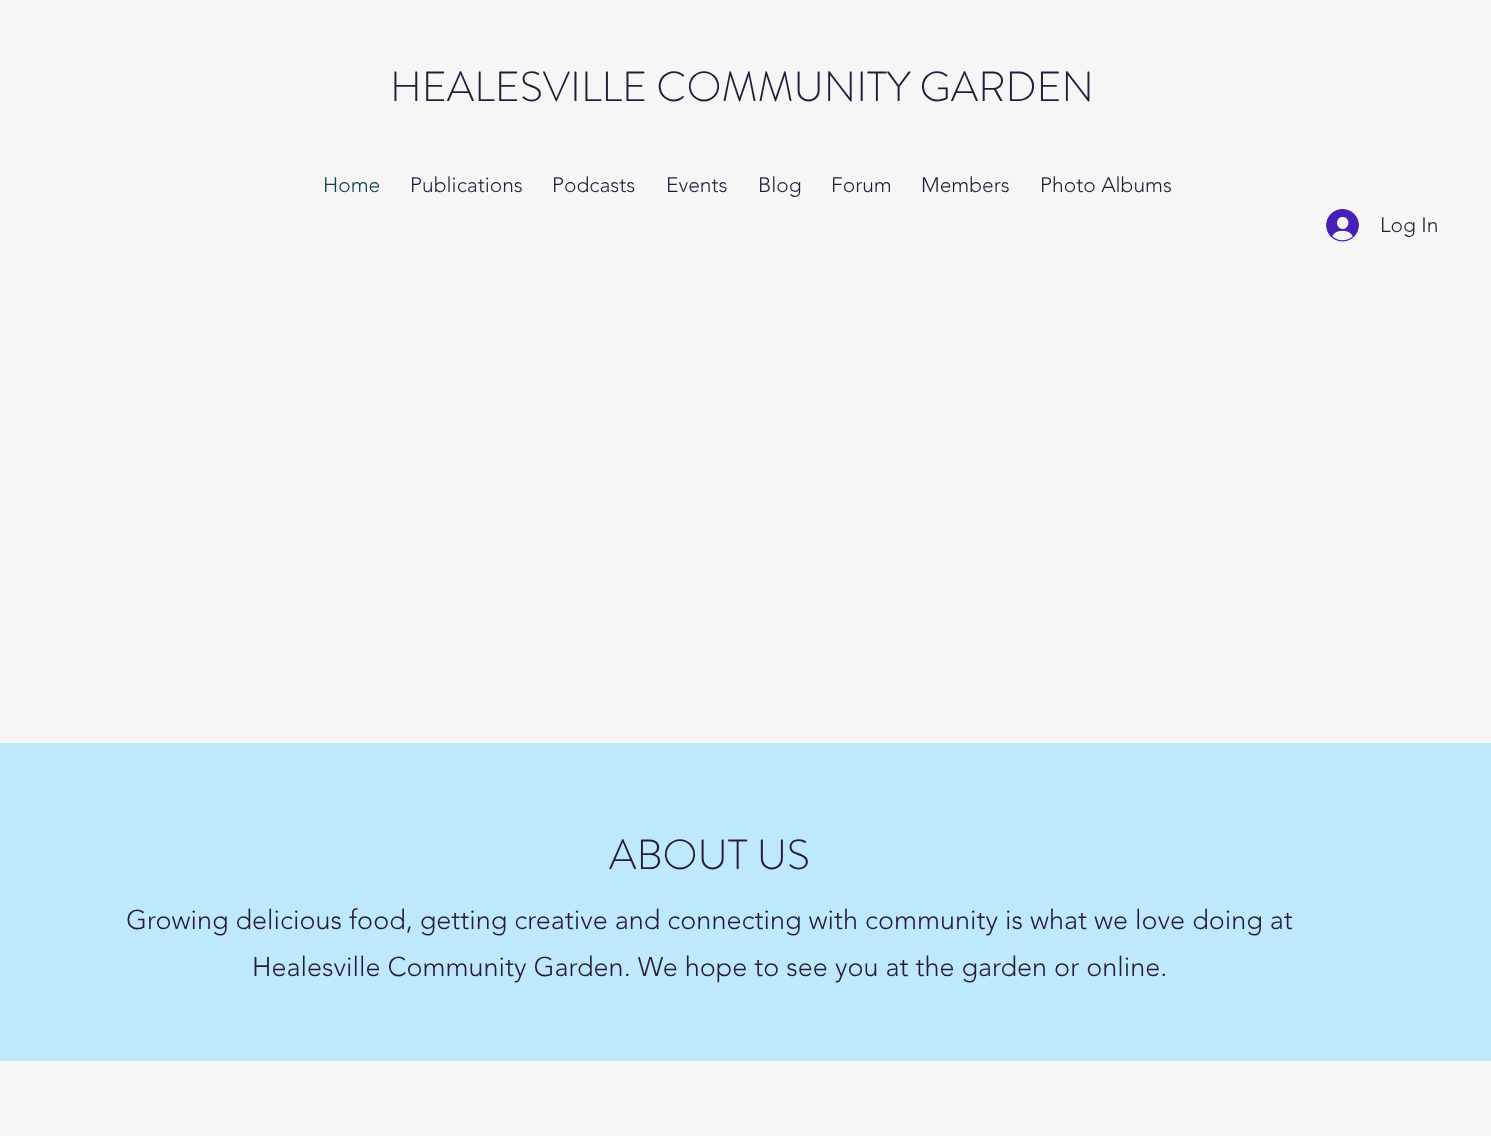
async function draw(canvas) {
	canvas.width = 1491;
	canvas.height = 1136;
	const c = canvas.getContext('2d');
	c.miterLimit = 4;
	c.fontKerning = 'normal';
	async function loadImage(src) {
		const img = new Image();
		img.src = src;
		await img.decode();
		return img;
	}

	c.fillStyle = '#f6f6f6';
	c.fillRect(0, 0, 1491, 1136);
	c.font = '300 42px "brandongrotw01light"';
	c.fillStyle = '#281a39';
	c.fillText('HEALESVILLE COMMUNITY GARDEN', 390, 101);
	c.font = '300 21px "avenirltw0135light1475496"';
	c.fillStyle = '#154051';
	c.fillText('Home', 323, 192);
	c.fillStyle = '#281a39';
	for (const [text, x, y] of [
		['Publications', 410, 192],
		['Podcasts', 552, 192],
		['Events', 666, 192],
		['Blog', 758, 192],
		['Forum', 831, 192],
		['Members', 921, 192],
		['Photo Albums', 1040, 192],
	]) {
		c.fillText(text, x, y);
	}
	c.drawImage(await loadImage('img1.png'), 1326, 209, 33, 33);
	c.fillText('Log In', 1380, 232);
	c.fillStyle = '#bde9fb';
	c.fillRect(0, 743, 1491, 318);
	c.font = '300 42px "brandongrotw01light"';
	c.fillStyle = '#281a39';
	c.fillText('ABOUT US', 609, 869);
	c.font = '300 27px "avenirltw0135light1475496"';
	c.fillText('Growing delicious food, getting creative and connecting with community is what we love doing at', 126, 929);
	c.fillText('Healesville Community Garden. We hope to see you at the garden or online.', 252, 976);
}

draw(document.querySelector('canvas'));
